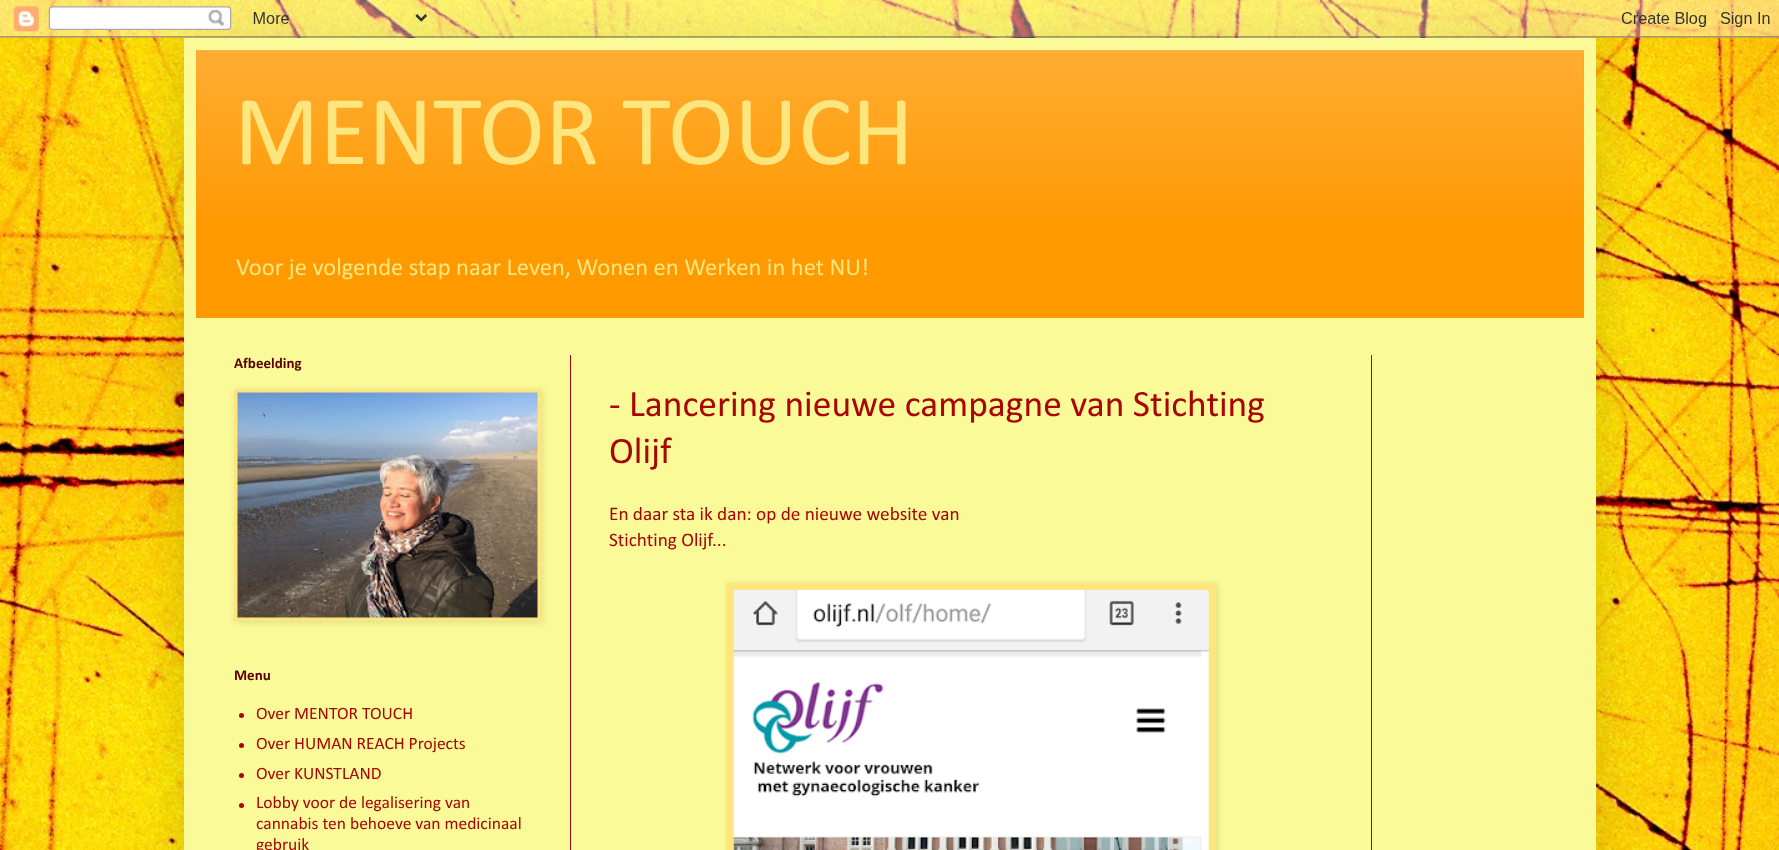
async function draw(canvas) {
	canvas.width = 1779;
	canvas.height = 850;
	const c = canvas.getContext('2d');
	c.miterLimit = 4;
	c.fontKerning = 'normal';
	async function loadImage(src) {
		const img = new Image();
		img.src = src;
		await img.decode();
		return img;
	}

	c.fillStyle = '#fff';
	c.fillRect(0, 0, 1779, 850);
	c.drawImage(await loadImage('img1.png'), 0, 0, 1779, 850);
	c.fillStyle = '#00000026';
	c.filter = 'blur(25px)';
	c.beginPath();
	c.rect(184, 38, 1412, 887);
	c.fill();
	c.filter = 'none';
	c.drawImage(await loadImage('img2.png'), 0, 0, 1779, 38);
	c.fillStyle = '#fafa98';
	c.fillRect(184, 38, 1412, 812);
	c.fillStyle = '#f90';
	c.fillRect(196, 50, 1388, 268);
	c.drawImage(await loadImage('img3.png'), 196, 50, 1388, 166);
	c.font = '100px Calibri';
	c.fillStyle = '#fde67e';
	c.fillText('MENTOR TOUCH', 234, 164);
	c.font = '24.5px Calibri';
	c.fillText('Voor je volgende stap naar Leven, Wonen en Werken in het NU!', 236, 275);
	c.fillStyle = '#aa0505';
	c.fillRect(570, 355, 1, 495);
	c.fillRect(1371, 355, 1, 495);
	c.font = 'bold 15px Calibri';
	c.fillStyle = '#5b0000';
	c.fillText('Afbeelding', 234, 368);
	c.fillStyle = '#0000001a';
	c.filter = 'blur(3px)';
	c.beginPath();
	c.rect(235, 390, 308, 233);
	c.fill();
	c.filter = 'none';
	c.fillStyle = '#fde67e';
	c.fillRect(234, 389, 307, 232);
	c.drawImage(await loadImage('img4.png'), 237, 392, 301, 226);
	c.fillStyle = '#5b0000';
	c.fillText('Menu', 234, 680);
	c.fillStyle = '#aa0505';
	c.beginPath();
	c.arc(241.5, 715.5, 2.5, 0, 2 * Math.PI);
	c.fill();
	c.font = '17.5px Calibri';
	c.fillText('Over MENTOR TOUCH', 256, 719);
	c.beginPath();
	c.arc(241.5, 745.5, 2.5, 0, 2 * Math.PI);
	c.fill();
	c.fillText('Over HUMAN REACH Projects', 256, 749);
	c.beginPath();
	c.arc(241.5, 775.5, 2.5, 0, 2 * Math.PI);
	c.fill();
	c.fillText('Over KUNSTLAND', 256, 779);
	c.beginPath();
	c.arc(241.5, 805.5, 2.5, 0, 2 * Math.PI);
	c.fill();
	for (const [text, x, y] of [
		['Lobby voor de legalisering van', 256, 808],
		['cannabis ten behoeve van medicinaal', 256, 829],
		['gebruik', 256, 850],
	]) {
		c.fillText(text, x, y);
	}
	c.font = '37.5px Calibri';
	c.fillText('- Lancering nieuwe campagne van Stichting', 609, 416);
	c.fillText('Olijf', 609, 463);
	c.font = '19.25px Calibri';
	c.fillText('En daar sta ik dan: op de nieuwe website van', 609, 520);
	c.fillText('Stichting Olijf...', 609, 546);
	c.fillStyle = '#0000001a';
	c.filter = 'blur(3px)';
	c.beginPath();
	c.rect(728, 584, 490, 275);
	c.fill();
	c.filter = 'none';
	c.fillStyle = '#fde67e';
	c.fillRect(726, 583, 490, 267);
	c.drawImage(await loadImage('img5.png'), 733, 590, 476, 260);
}

draw(document.querySelector('canvas'));
